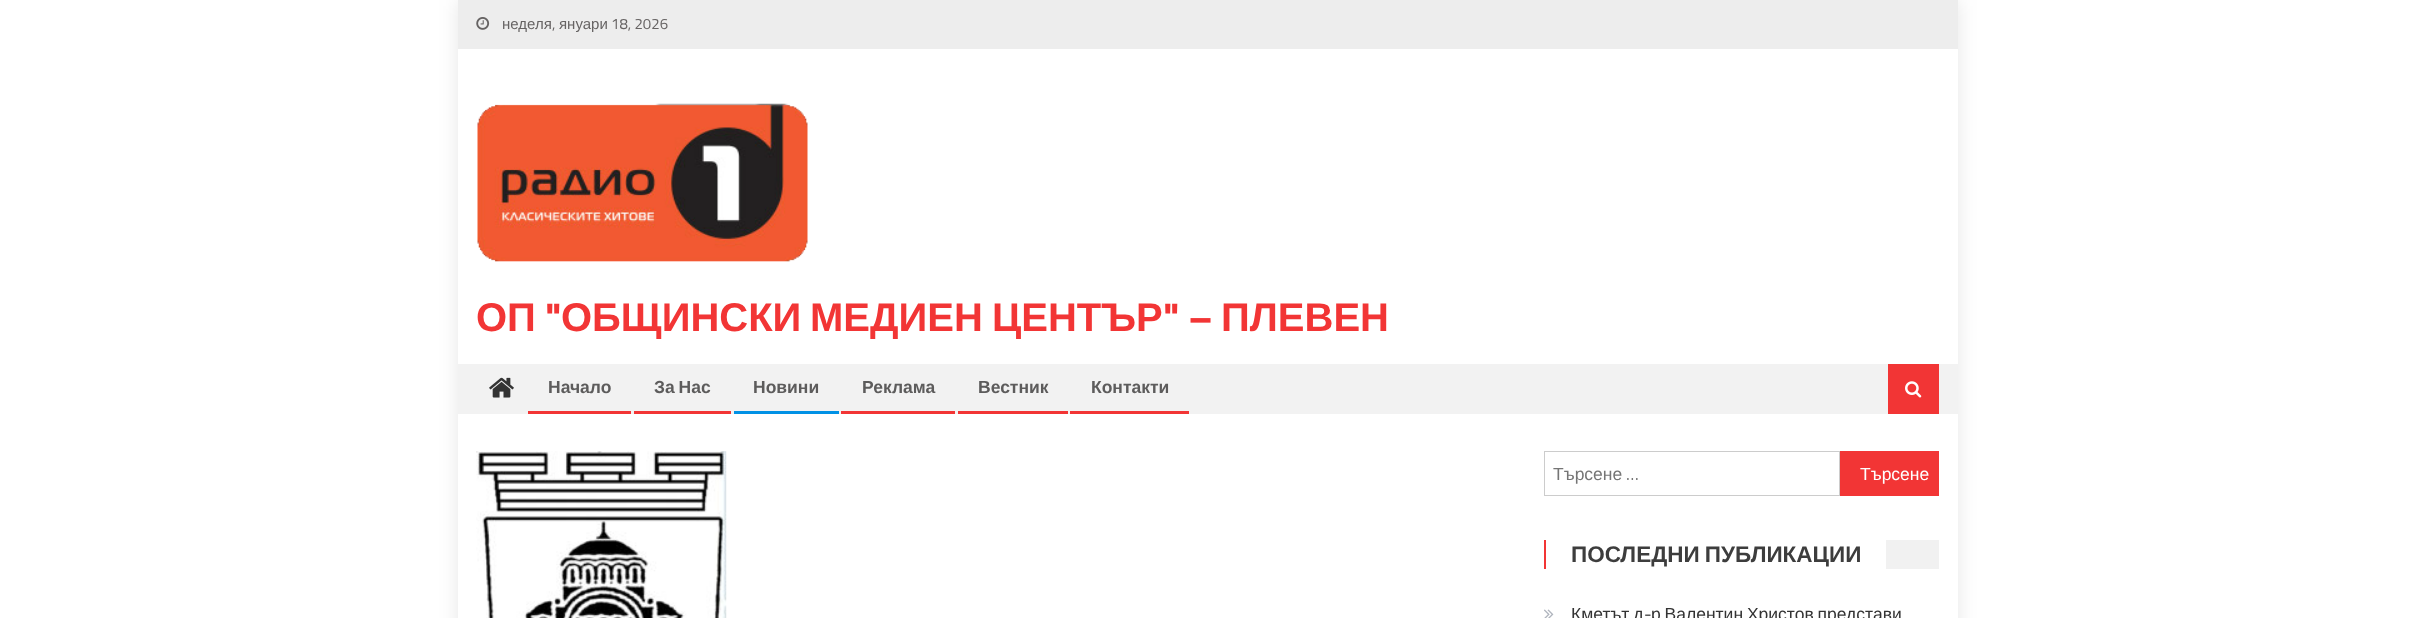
async function draw(canvas) {
	canvas.width = 2415;
	canvas.height = 618;
	const c = canvas.getContext('2d');
	c.miterLimit = 4;
	c.fontKerning = 'normal';
	async function loadImage(src) {
		const img = new Image();
		img.src = src;
		await img.decode();
		return img;
	}

	c.fillStyle = '#fff';
	c.fillRect(0, 0, 2415, 618);
	c.fillStyle = '#0000001a';
	c.filter = 'blur(9.5px)';
	c.beginPath();
	c.rect(458, 0, 1500, 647);
	c.fill();
	c.filter = 'none';
	c.fillStyle = '#fff';
	c.fillRect(458, 49, 1500, 569);
	c.fillStyle = '#ededed';
	c.fillRect(458, 0, 1500, 49);
	c.drawImage(await loadImage('img1.png'), 476, 17, 14, 13);
	c.font = '15px Liberation Sans';
	c.fillStyle = '#666363';
	c.fillText('неделя', 502, 29);
	c.font = '15px Titillium Web';
	c.fillText(',', 552, 29);
	c.font = '15px Liberation Sans';
	c.fillText('януари', 559, 29);
	c.font = '15px Titillium Web';
	c.fillText('18, 2026', 611, 29);
	c.drawImage(await loadImage('img2.png'), 477, 103, 331, 159);
	c.font = 'bold 40px Liberation Sans';
	c.fillStyle = '#f23535';
	c.fillText('ОП', 476, 331);
	c.font = 'bold 40px Titillium Web';
	c.fillText('"', 545, 331);
	c.font = 'bold 40px Liberation Sans';
	for (const [text, x, y] of [
		['ОБЩИНСКИ', 561, 331],
		['МЕДИЕН', 810, 331],
		['ЦЕНТЪР', 992, 331],
	]) {
		c.fillText(text, x, y);
	}
	c.font = 'bold 40px Titillium Web';
	c.fillText('" –', 1163, 331);
	c.font = 'bold 40px Liberation Sans';
	c.fillText('ПЛЕВЕН', 1221, 331);
	c.fillStyle = '#f2f2f2';
	c.fillRect(458, 364, 1500, 50);
	c.drawImage(await loadImage('img3.png'), 489, 377, 25, 21);
	c.fillStyle = '#f23535';
	c.fillRect(528, 411, 103, 3);
	c.font = 'bold 17.5px Liberation Sans';
	c.fillStyle = '#5d5c5c';
	c.fillText('Начало', 548, 393);
	c.fillStyle = '#f23535';
	c.fillRect(634, 411, 97, 3);
	c.wordSpacing = '-1px';
	c.fillStyle = '#5d5c5c';
	c.fillText('За Нас', 654, 393);
	c.fillStyle = '#0091e5';
	c.fillRect(734, 411, 105, 3);
	c.wordSpacing = '0px';
	c.fillStyle = '#5d5c5c';
	c.fillText('Новини', 753, 393);
	c.fillStyle = '#f23535';
	c.fillRect(841, 411, 114, 3);
	c.fillStyle = '#5d5c5c';
	c.fillText('Реклама', 862, 393);
	c.fillStyle = '#f23535';
	c.fillRect(958, 411, 110, 3);
	c.fillStyle = '#5d5c5c';
	c.fillText('Вестник', 978, 393);
	c.fillStyle = '#f23535';
	c.fillRect(1070, 411, 119, 3);
	c.fillStyle = '#5d5c5c';
	c.fillText('Контакти', 1091, 393);
	c.fillStyle = '#f23535';
	c.fillRect(1888, 364, 51, 50);
	c.drawImage(await loadImage('img4.png'), 1905, 381, 17, 17);
	c.drawImage(await loadImage('img5.png'), 476, 451, 251, 167);
	c.strokeStyle = '#ccc';
	c.strokeRect(1544.5, 451.5, 295, 44);
	c.font = '17.5px Liberation Sans';
	c.fillStyle = '#757575';
	c.fillText('Търсене', 1553, 480);
	c.font = '17.5px Titillium Web';
	c.fillText('…', 1626, 480);
	c.fillStyle = '#f23535';
	c.fillRect(1840, 451, 99, 45);
	c.font = '17.5px Liberation Sans';
	c.fillStyle = '#fff';
	c.fillText('Търсене', 1860, 480);
	c.fillStyle = '#f1f1f1';
	c.fillRect(1886, 540, 53, 29);
	c.fillStyle = '#f23535';
	c.fillRect(1544, 540, 2, 29);
	c.wordSpacing = '-1px';
	c.font = 'bold 22.5px Liberation Sans';
	c.fillStyle = '#3d3d3d';
	c.fillText('ПОСЛЕДНИ ПУБЛИКАЦИИ', 1571, 562);
	c.drawImage(await loadImage('img6.png'), 1544, 609, 10, 9);
	c.font = '17.5px Liberation Sans';
	c.fillStyle = '#333';
	c.fillText('Кметът д', 1571, 620);
	c.wordSpacing = '0px';
	c.font = '17.5px Titillium Web';
	c.fillText('-', 1644, 620);
	c.wordSpacing = '-1px';
	c.font = '17.5px Liberation Sans';
	c.fillText('р Валентин Христов представи', 1651, 620);
}

draw(document.querySelector('canvas'));
